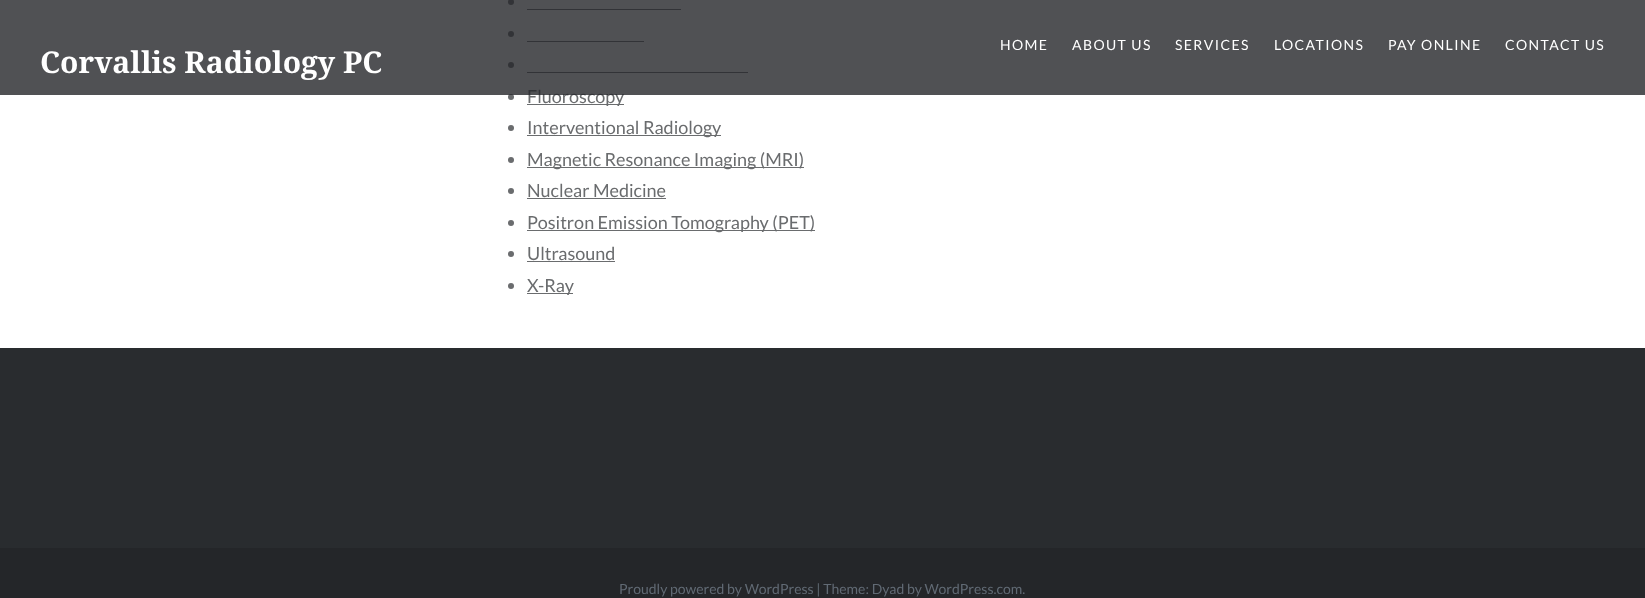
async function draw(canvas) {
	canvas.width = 1645;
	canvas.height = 598;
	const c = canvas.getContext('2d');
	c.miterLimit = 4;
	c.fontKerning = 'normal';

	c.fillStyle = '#fff';
	c.fillRect(0, 0, 1645, 598);
	c.fillStyle = '#6a6c6e';
	c.beginPath();
	c.arc(511, 2, 3, 0, 2 * Math.PI);
	c.fill();
	c.fillRect(527, 9, 154, 1);
	c.beginPath();
	c.arc(511, 34, 3, 0, 2 * Math.PI);
	c.fill();
	c.fillRect(527, 41, 117, 1);
	c.beginPath();
	c.arc(511, 65, 3, 0, 2 * Math.PI);
	c.fill();
	c.fillRect(527, 72, 221, 1);
	c.beginPath();
	c.arc(511, 97, 3, 0, 2 * Math.PI);
	c.fill();
	c.fillRect(527, 104, 97, 1);
	c.font = '18px Lato';
	c.fillText('Fluoroscopy', 527, 103);
	c.fillStyle = '#242629cc';
	c.fillRect(0, 0, 1645, 95);
	c.letterSpacing = '1.4px';
	c.font = '14px Lato';
	c.fillStyle = '#fff';
	for (const [text, x, y] of [
		['HOME', 1000, 50],
		['ABOUT US', 1072, 50],
		['SERVICES', 1175, 50],
		['LOCATIONS', 1274, 50],
		['PAY ONLINE', 1388, 50],
		['CONTACT US', 1505, 50],
	]) {
		c.fillText(text, x, y);
	}
	c.letterSpacing = '0px';
	c.font = 'bold 30px Noto Serif';
	c.fillText('Corvallis Radiology PC', 40, 73);
	c.fillStyle = '#6a6c6e';
	c.beginPath();
	c.arc(511, 128, 3, 0, 2 * Math.PI);
	c.fill();
	c.fillRect(527, 135, 194, 1);
	c.font = '18px Lato';
	c.fillText('Interventional Radiology', 527, 134);
	c.beginPath();
	c.arc(511, 160, 3, 0, 2 * Math.PI);
	c.fill();
	c.fillRect(527, 167, 277, 1);
	c.fillText('Magnetic Resonance Imaging (MRI)', 527, 166);
	c.beginPath();
	c.arc(511, 191, 3, 0, 2 * Math.PI);
	c.fill();
	c.fillText('Nuclear Medicine', 527, 197);
	c.fillRect(527, 198, 139, 1);
	c.beginPath();
	c.arc(511, 223, 3, 0, 2 * Math.PI);
	c.fill();
	c.fillRect(527, 230, 288, 1);
	c.fillText('Positron Emission Tomography (PET)', 527, 229);
	c.beginPath();
	c.arc(511, 254, 3, 0, 2 * Math.PI);
	c.fill();
	c.fillText('Ultrasound', 527, 260);
	c.fillRect(527, 261, 88, 1);
	c.beginPath();
	c.arc(511, 286, 3, 0, 2 * Math.PI);
	c.fill();
	c.fillRect(527, 293, 46, 1);
	c.fillText('X-Ray', 527, 292);
	c.fillStyle = '#292c2f';
	c.fillRect(0, 348, 1645, 200);
	c.fillStyle = '#242629';
	c.fillRect(0, 548, 1645, 50);
	c.font = '14px Lato';
	c.fillStyle = '#616a74';
	c.fillText('Proudly powered by WordPress | Theme: Dyad by WordPress.com.', 619, 594);
}

draw(document.querySelector('canvas'));
